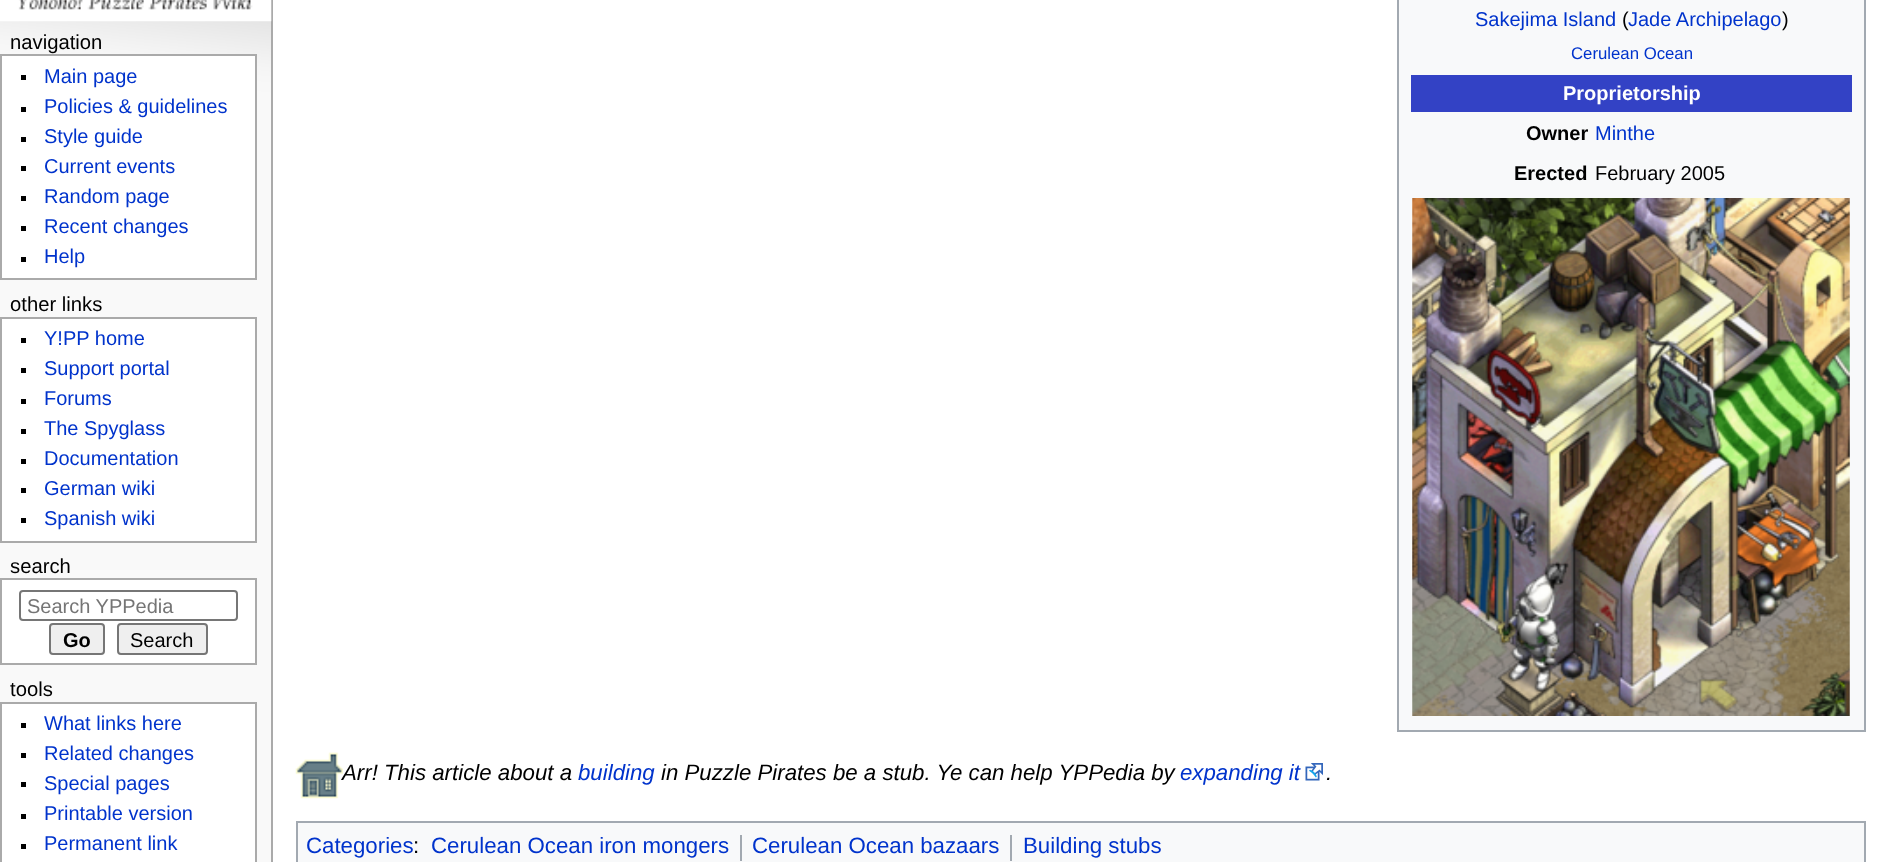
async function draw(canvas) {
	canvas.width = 1887;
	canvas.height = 862;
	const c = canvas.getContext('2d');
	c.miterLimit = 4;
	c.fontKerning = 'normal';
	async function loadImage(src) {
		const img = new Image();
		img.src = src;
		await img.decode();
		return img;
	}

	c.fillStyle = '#f9f9f9';
	c.fillRect(0, 0, 1887, 862);
	c.drawImage(await loadImage('img1.png'), 0, 21, 271, 96);
	c.fillStyle = '#aaa';
	c.fillRect(271, 0, 2, 862);
	c.drawImage(await loadImage('img2.png'), 0, 0, 272, 22);
	c.font = '20.25px Liberation Sans';
	c.fillStyle = '#000';
	c.fillText('navigation', 10, 49);
	c.fillStyle = '#fff';
	c.beginPath();
	c.rect(1, 55, 255, 224);
	c.fill();
	c.strokeStyle = '#aaa';
	c.lineWidth = 2;
	c.stroke();
	c.fillStyle = '#000';
	c.fillRect(21, 75, 5, 5);
	c.font = '20px Liberation Sans';
	c.fillStyle = '#03c';
	c.fillText('Main page', 44, 83);
	c.fillStyle = '#000';
	c.fillRect(21, 107, 5, 5);
	c.fillStyle = '#03c';
	c.fillText('Policies & guidelines', 44, 113);
	c.fillStyle = '#000';
	c.fillRect(21, 137, 5, 5);
	c.fillStyle = '#03c';
	c.fillText('Style guide', 44, 143);
	c.fillStyle = '#000';
	c.fillRect(21, 166, 5, 5);
	c.fillStyle = '#03c';
	c.fillText('Current events', 44, 173);
	c.fillStyle = '#000';
	c.fillRect(21, 196, 5, 5);
	c.fillStyle = '#03c';
	c.fillText('Random page', 44, 203);
	c.fillStyle = '#000';
	c.fillRect(21, 226, 5, 5);
	c.fillStyle = '#03c';
	c.fillText('Recent changes', 44, 233);
	c.fillStyle = '#000';
	c.fillRect(21, 257, 5, 5);
	c.fillStyle = '#03c';
	c.fillText('Help', 44, 263);
	c.font = '20.25px Liberation Sans';
	c.fillStyle = '#000';
	c.fillText('other links', 10, 311);
	c.fillStyle = '#fff';
	c.beginPath();
	c.rect(1, 318, 255, 224);
	c.fill();
	c.stroke();
	c.fillStyle = '#000';
	c.fillRect(21, 338, 5, 5);
	c.font = '20px Liberation Sans';
	c.fillStyle = '#03c';
	c.fillText('Y!PP home', 44, 345);
	c.fillStyle = '#000';
	c.fillRect(21, 368, 5, 5);
	c.fillStyle = '#03c';
	c.fillText('Support portal', 44, 375);
	c.fillStyle = '#000';
	c.fillRect(21, 399, 5, 5);
	c.fillStyle = '#03c';
	c.fillText('Forums', 44, 405);
	c.fillStyle = '#000';
	c.fillRect(21, 429, 5, 5);
	c.fillStyle = '#03c';
	c.fillText('The Spyglass', 44, 435);
	c.fillStyle = '#000';
	c.fillRect(21, 459, 5, 5);
	c.fillStyle = '#03c';
	c.fillText('Documentation', 44, 465);
	c.fillStyle = '#000';
	c.fillRect(21, 488, 5, 5);
	c.fillStyle = '#03c';
	c.fillText('German wiki', 44, 495);
	c.fillStyle = '#000';
	c.fillRect(21, 518, 5, 5);
	c.fillStyle = '#03c';
	c.fillText('Spanish wiki', 44, 525);
	c.font = '20.25px Liberation Sans';
	c.fillStyle = '#000';
	c.fillText('search', 10, 573);
	c.fillStyle = '#fff';
	c.beginPath();
	c.rect(1, 579, 255, 85);
	c.fill();
	c.stroke();
	c.beginPath();
	c.roundRect(20, 591, 217, 29, 3);
	c.strokeStyle = '#767676';
	c.stroke();
	c.font = '20px Liberation Sans';
	c.fillStyle = '#757575';
	c.fillText('Search YPPedia', 27, 613);
	c.fillStyle = '#efefef';
	c.beginPath();
	c.roundRect(50, 624, 54, 30, 3);
	c.fill();
	c.stroke();
	c.font = 'bold 20px Liberation Sans';
	c.fillStyle = '#000';
	c.fillText('Go', 63, 647);
	c.fillStyle = '#efefef';
	c.beginPath();
	c.roundRect(118, 624, 89, 30, 3);
	c.fill();
	c.stroke();
	c.font = '20px Liberation Sans';
	c.fillStyle = '#000';
	c.fillText('Search', 130, 647);
	c.font = '20.25px Liberation Sans';
	c.fillText('tools', 10, 696);
	c.fillStyle = '#fff';
	c.beginPath();
	c.rect(1, 703, 255, 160);
	c.fill();
	c.strokeStyle = '#aaa';
	c.stroke();
	c.fillStyle = '#000';
	c.fillRect(21, 723, 5, 5);
	c.font = '20px Liberation Sans';
	c.fillStyle = '#03c';
	c.fillText('What links here', 44, 730);
	c.fillStyle = '#000';
	c.fillRect(21, 753, 5, 5);
	c.fillStyle = '#03c';
	c.fillText('Related changes', 44, 760);
	c.fillStyle = '#000';
	c.fillRect(21, 782, 5, 5);
	c.fillStyle = '#03c';
	c.fillText('Special pages', 44, 790);
	c.fillStyle = '#000';
	c.fillRect(21, 814, 5, 5);
	c.fillStyle = '#03c';
	c.fillText('Printable version', 44, 820);
	c.fillStyle = '#000';
	c.fillRect(21, 844, 5, 5);
	c.fillStyle = '#03c';
	c.fillText('Permanent link', 44, 850);
	c.fillStyle = '#fff';
	c.fillRect(273, 0, 1614, 862);
	c.fillStyle = '#f8f9fa';
	c.beginPath();
	c.rect(1398, -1, 467, 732);
	c.fill();
	c.strokeStyle = '#a2a9b1';
	c.stroke();
	c.fillStyle = '#03c';
	c.fillText('Sakejima Island', 1475, 26);
	c.fillStyle = '#000';
	c.fillText('(', 1622, 26);
	c.fillStyle = '#03c';
	c.fillText('Jade Archipelago', 1628, 26);
	c.fillStyle = '#000';
	c.fillText(')', 1782, 26);
	c.font = '16.75px Liberation Sans';
	c.fillStyle = '#03c';
	c.fillText('Cerulean Ocean', 1571, 59);
	c.fillStyle = '#3342c5';
	c.fillRect(1411, 75, 441, 37);
	c.font = 'bold 20px Liberation Sans';
	c.fillStyle = '#fff';
	c.fillText('Proprietorship', 1563, 100);
	c.fillStyle = '#000';
	c.fillText('Owner', 1526, 140);
	c.font = '20px Liberation Sans';
	c.fillStyle = '#03c';
	c.fillText('Minthe', 1595, 140);
	c.font = 'bold 20px Liberation Sans';
	c.fillStyle = '#000';
	c.fillText('Erected', 1514, 180);
	c.font = '20px Liberation Sans';
	c.fillText('February 2005', 1595, 180);
	c.drawImage(await loadImage('img3.png'), 1412, 198, 438, 518);
	c.drawImage(await loadImage('img4.png'), 295, 752, 48, 47);
	c.font = 'italic 22.25px Liberation Sans';
	c.fillText('Arr! This article about a', 342, 780);
	c.fillStyle = '#03c';
	c.fillText('building', 578, 780);
	c.fillStyle = '#000';
	c.fillText('in Puzzle Pirates be a stub. Ye can help YPPedia by', 661, 780);
	c.fillStyle = '#03c';
	c.fillText('expanding it', 1180, 780);
	c.drawImage(await loadImage('img5.png'), 1305, 763, 18, 18);
	c.fillStyle = '#000';
	c.fillText('.', 1326, 780);
	c.fillStyle = '#f8f9fa';
	c.beginPath();
	c.rect(297, 822, 1568, 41);
	c.fill();
	c.stroke();
	c.font = '22.25px Liberation Sans';
	c.fillStyle = '#03c';
	c.fillText('Categories', 306, 853);
	c.fillStyle = '#000';
	c.fillText(':', 413, 853);
	c.fillStyle = '#03c';
	c.fillText('Cerulean Ocean iron mongers', 431, 853);
	c.fillStyle = '#a2a9b1';
	c.fillRect(740, 835, 2, 26);
	c.fillStyle = '#03c';
	c.fillText('Cerulean Ocean bazaars', 752, 853);
	c.fillStyle = '#a2a9b1';
	c.fillRect(1010, 835, 2, 26);
	c.fillStyle = '#03c';
	c.fillText('Building stubs', 1023, 853);
}

draw(document.querySelector('canvas'));
